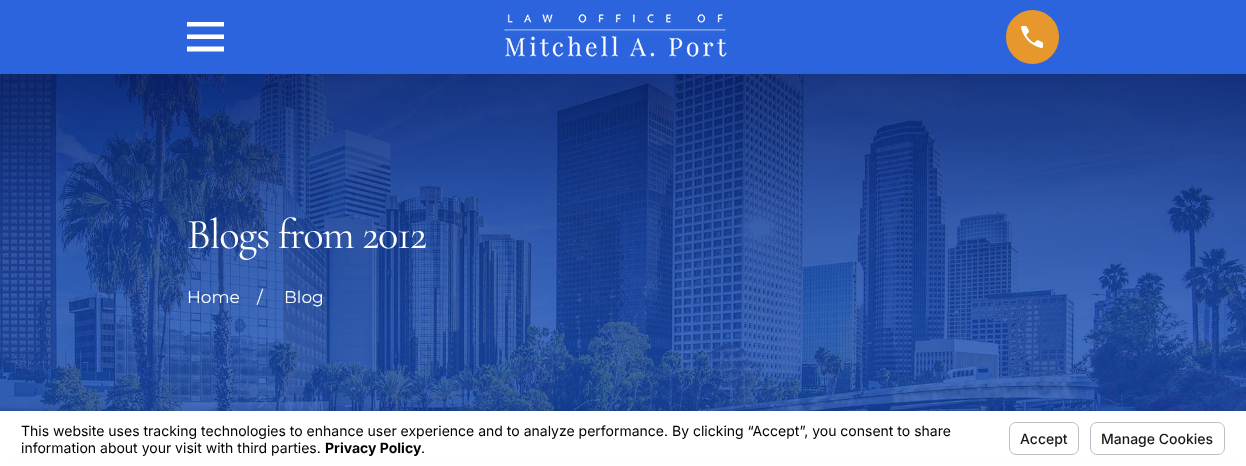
async function draw(canvas) {
	canvas.width = 1246;
	canvas.height = 466;
	const c = canvas.getContext('2d');
	c.miterLimit = 4;
	c.fontKerning = 'normal';
	async function loadImage(src) {
		const img = new Image();
		img.src = src;
		await img.decode();
		return img;
	}

	c.fillStyle = '#fff';
	c.fillRect(0, 0, 1246, 466);
	c.fillStyle = '#2c64dd';
	c.fillRect(0, 0, 1246, 74);
	c.save();
	c.beginPath();
	c.rect(187, 18, 37, 38);
	c.clip();
	c.fillStyle = '#fff';
	c.beginPath();
	c.moveTo(187, 22);
	c.lineTo(187, 26.5);
	c.lineTo(224.5, 26.5);
	c.lineTo(224.5, 22);
	c.closePath();
	c.moveTo(187, 34.5);
	c.lineTo(187, 39);
	c.lineTo(224.5, 39);
	c.lineTo(224.5, 34.5);
	c.closePath();
	c.moveTo(187, 46.5);
	c.lineTo(187, 51.5);
	c.lineTo(224.5, 51.5);
	c.lineTo(224.5, 46.5);
	c.closePath();
	c.fill();
	c.restore();
	c.drawImage(await loadImage('img1.png'), 504, 14, 223, 45);
	c.fillStyle = '#e6982c';
	c.beginPath();
	c.roundRect(1006, 10, 53, 54, 26.5);
	c.fill();
	c.drawImage(await loadImage('img2.png'), 1021, 26, 22, 22);
	c.drawImage(await loadImage('img3.png'), 0, 74, 1246, 337);
	c.letterSpacing = '-1.25px';
	c.font = '42.5px Cormorant Garamond';
	c.fillStyle = '#fff';
	c.fillText('Blogs from 2012', 187, 248);
	c.letterSpacing = '0px';
	c.font = '17px Montserrat';
	for (const [text, x, y] of [
		['Home', 187, 303],
		['/', 257, 303],
		['Blog', 284, 303],
	]) {
		c.fillText(text, x, y);
	}
	c.fillStyle = '#0000000d';
	c.filter = 'blur(1.5px)';
	c.beginPath();
	c.rect(0, 407, 1246, 55);
	c.fill();
	c.filter = 'none';
	c.fillStyle = '#fff';
	c.fillRect(0, 411, 1246, 52);
	c.font = '14px Inter';
	c.fillStyle = '#000';
	c.fillText('This website uses tracking technologies to enhance user experience and to analyze performance. By clicking “Accept”, you consent to share', 21, 436);
	c.fillText('information about your visit with third parties.', 21, 453);
	c.font = 'bold 14px Inter';
	c.fillText('Privacy Policy', 325, 453);
	c.font = '14px Inter';
	c.fillText('.', 421, 453);
	c.beginPath();
	c.roundRect(1009.5, 422.5, 69, 32, 6.5);
	c.strokeStyle = '#bcbec7';
	c.stroke();
	c.font = '500 14px Inter';
	c.fillStyle = '#191919';
	c.fillText('Accept', 1020, 444);
	c.beginPath();
	c.roundRect(1090.5, 422.5, 134, 32, 6.5);
	c.stroke();
	c.fillText('Manage Cookies', 1101, 444);
}

draw(document.querySelector('canvas'));
